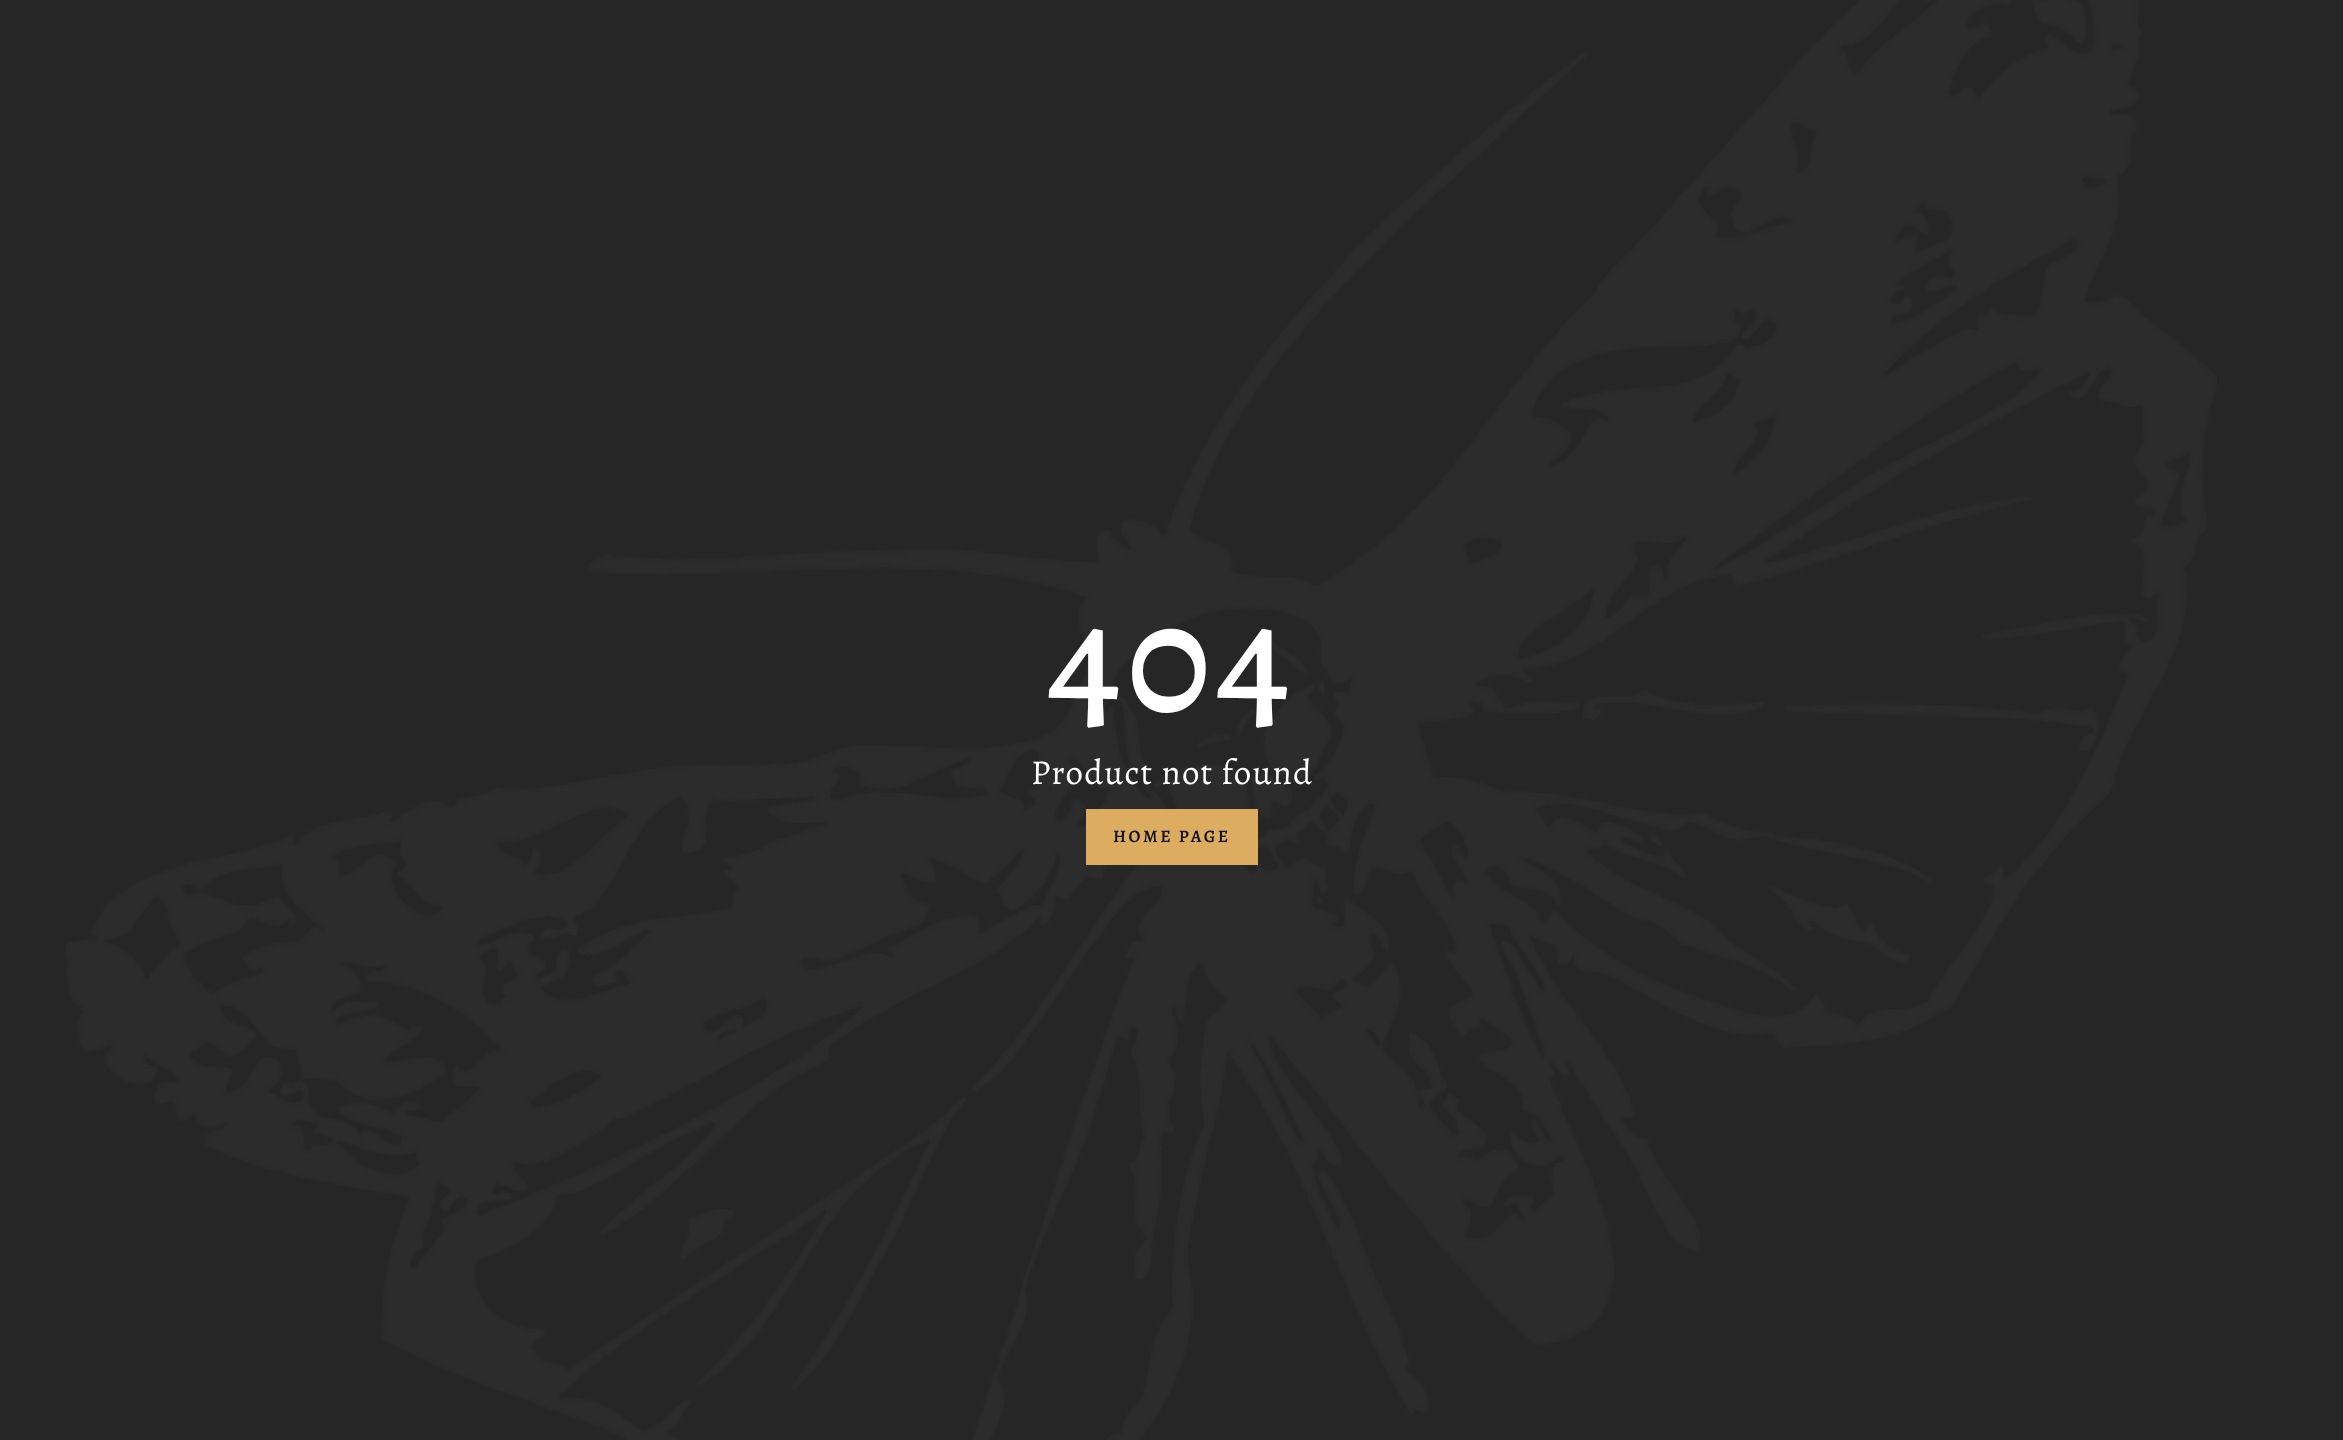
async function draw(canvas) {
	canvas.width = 2343;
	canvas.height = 1440;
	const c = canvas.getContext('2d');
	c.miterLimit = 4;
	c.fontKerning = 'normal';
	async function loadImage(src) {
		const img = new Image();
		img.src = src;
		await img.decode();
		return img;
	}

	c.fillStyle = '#262626';
	c.fillRect(0, 0, 2343, 1440);
	c.drawImage(await loadImage('img1.png'), 65, 0, 2152, 1440);
	c.letterSpacing = '5px';
	c.font = '500 162px Alegreya';
	c.fillStyle = '#fff';
	c.fillText('404', 1047, 711);
	c.letterSpacing = '1.25px';
	c.font = '35px Alegreya';
	c.fillText('Product not found', 1031, 784);
	c.fillStyle = '#dcad61';
	c.fillRect(1086, 809, 172, 56);
	c.letterSpacing = '2.5px';
	c.font = '600 17.5px Alegreya';
	c.fillStyle = '#131313';
	c.fillText('HOME PAGE', 1113, 842);
}

draw(document.querySelector('canvas'));
